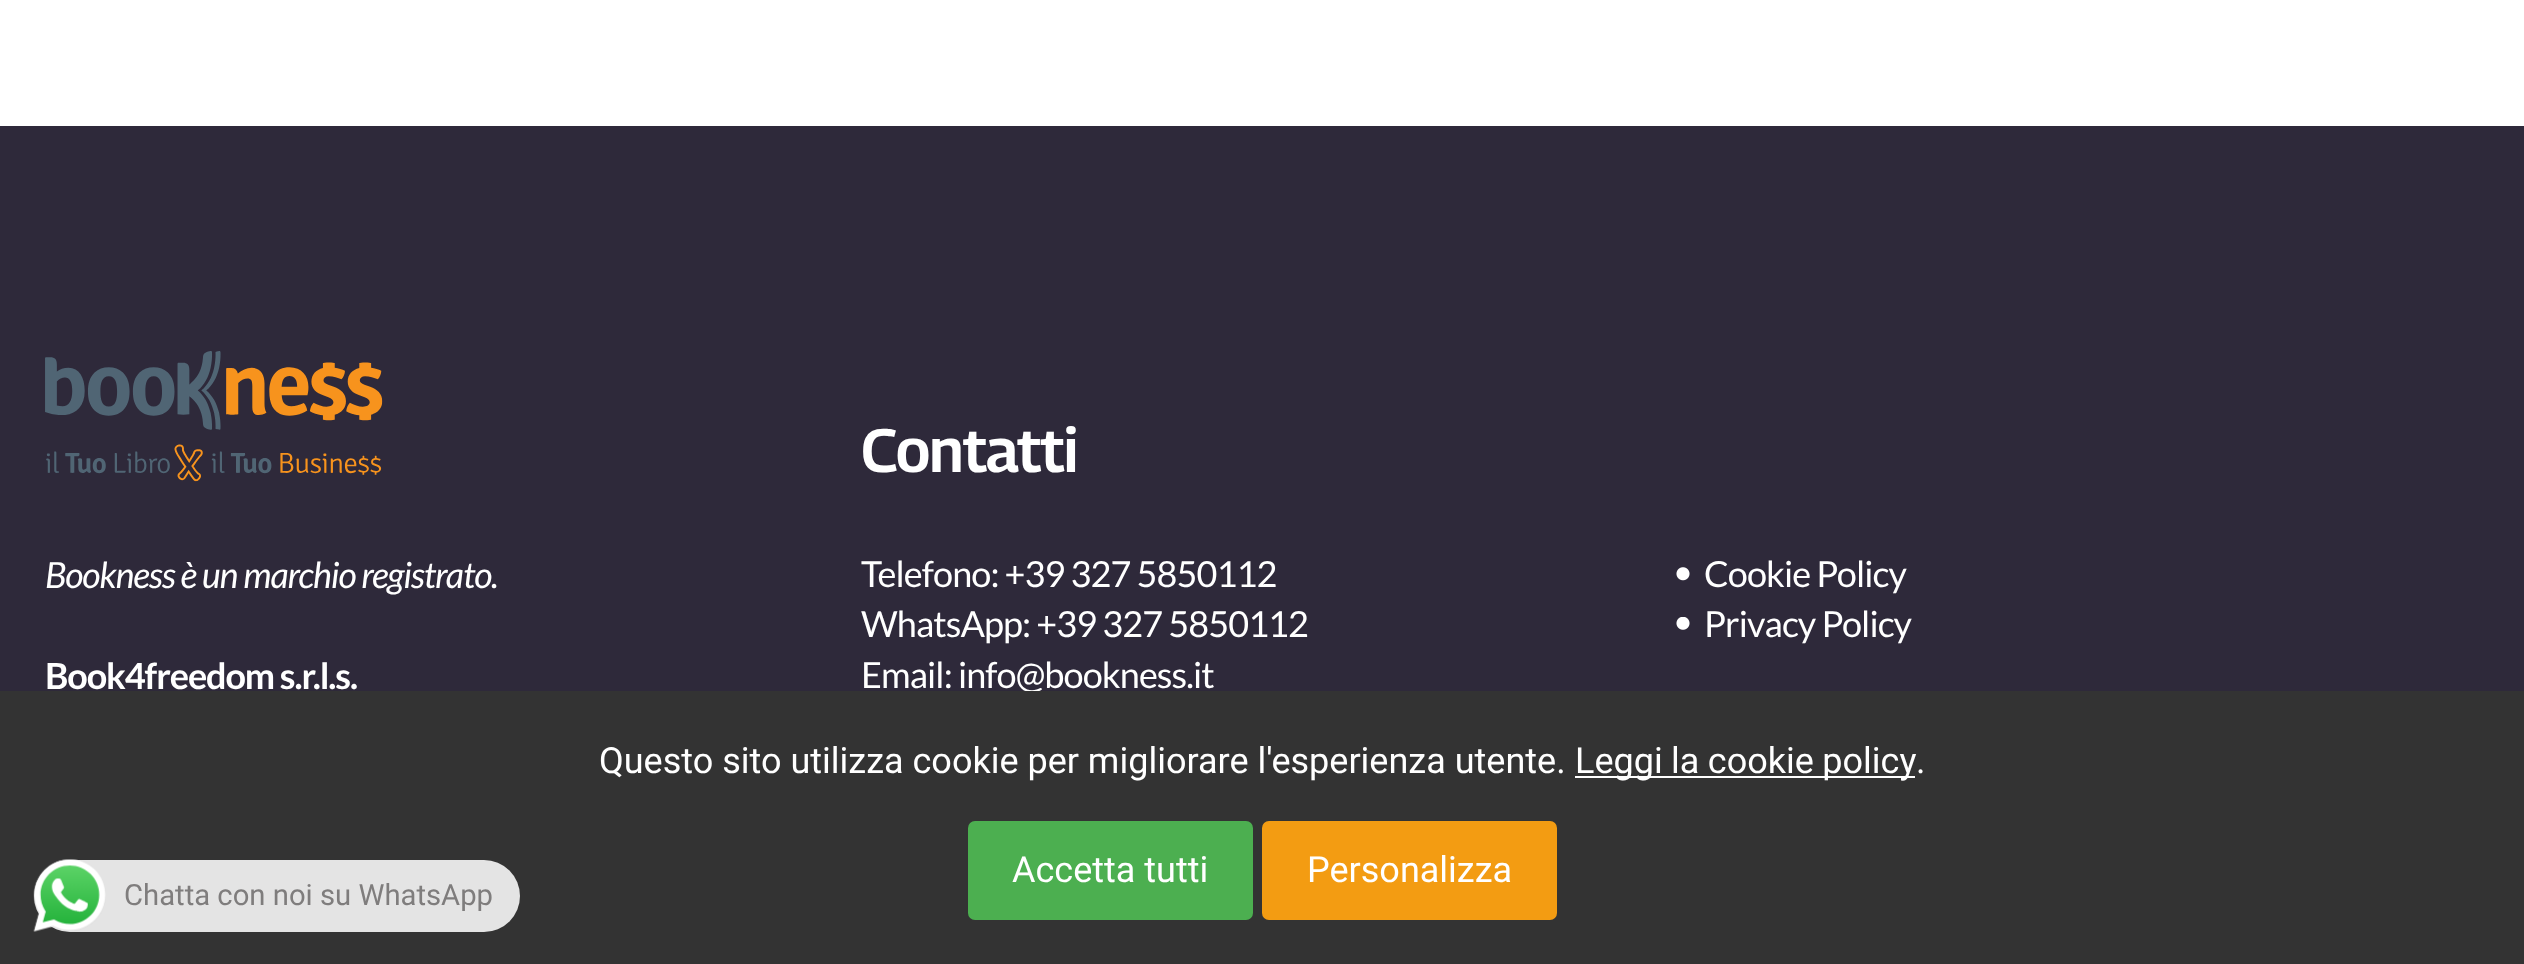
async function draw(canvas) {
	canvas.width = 2524;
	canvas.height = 964;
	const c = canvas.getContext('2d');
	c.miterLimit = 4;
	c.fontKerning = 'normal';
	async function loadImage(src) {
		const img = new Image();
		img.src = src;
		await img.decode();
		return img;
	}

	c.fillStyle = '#fff';
	c.fillRect(0, 0, 2524, 964);
	c.fillStyle = '#2e293a';
	c.fillRect(0, 126, 2524, 565);
	c.drawImage(await loadImage('img1.png'), 45, 351, 338, 131);
	c.letterSpacing = '-1.1px';
	c.font = 'italic 36px Lato';
	c.fillStyle = '#fff';
	c.fillText('Bookness è un marchio registrato.', 45, 588);
	c.font = 'bold 36px Lato';
	c.fillText('Book4freedom s.r.l.s.', 45, 689);
	c.font = '600 61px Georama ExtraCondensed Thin';
	c.fillText('Contatti', 861, 472);
	c.letterSpacing = '-0.9px';
	c.font = '36px Lato';
	for (const [text, x, y] of [
		['Telefono: +39 327 5850112', 861, 587],
		['WhatsApp: +39 327 5850112', 861, 637],
		['Email: info@bookness.it', 861, 688],
	]) {
		c.fillText(text, x, y);
	}
	c.drawImage(await loadImage('img2.png'), 1676, 567, 14, 14);
	c.fillText('Cookie Policy', 1704, 587);
	c.drawImage(await loadImage('img3.png'), 1676, 617, 14, 13);
	c.fillText('Privacy Policy', 1704, 637);
	c.fillStyle = '#333';
	c.fillRect(0, 691, 2524, 273);
	c.letterSpacing = '0px';
	c.font = '36px Roboto';
	c.fillStyle = '#fff';
	c.fillText('Questo sito utilizza cookie per migliorare l\'esperienza utente.', 599, 773);
	c.fillRect(1575, 776, 340, 2);
	c.wordSpacing = '-0.5px';
	c.fillText('Leggi la cookie policy', 1575, 773);
	c.wordSpacing = '0px';
	c.fillText('.', 1916, 773);
	c.fillStyle = '#4caf50';
	c.beginPath();
	c.roundRect(968, 821, 285, 99, 7);
	c.fill();
	c.fillStyle = '#fff';
	c.fillText('Accetta tutti', 1012, 882);
	c.fillStyle = '#f39c12';
	c.beginPath();
	c.roundRect(1262, 821, 295, 99, 7);
	c.fill();
	c.fillStyle = '#fff';
	c.fillText('Personalizza', 1307, 882);
	c.fillStyle = '#e4e4e4';
	c.beginPath();
	c.roundRect(34, 860, 486, 72, 36);
	c.fill();
	c.drawImage(await loadImage('img4.png'), 33, 859, 73, 73);
	c.font = '29.25px Roboto';
	c.fillStyle = '#7f7d7d';
	c.fillText('Chatta con noi su WhatsApp', 124, 905);
}

draw(document.querySelector('canvas'));
